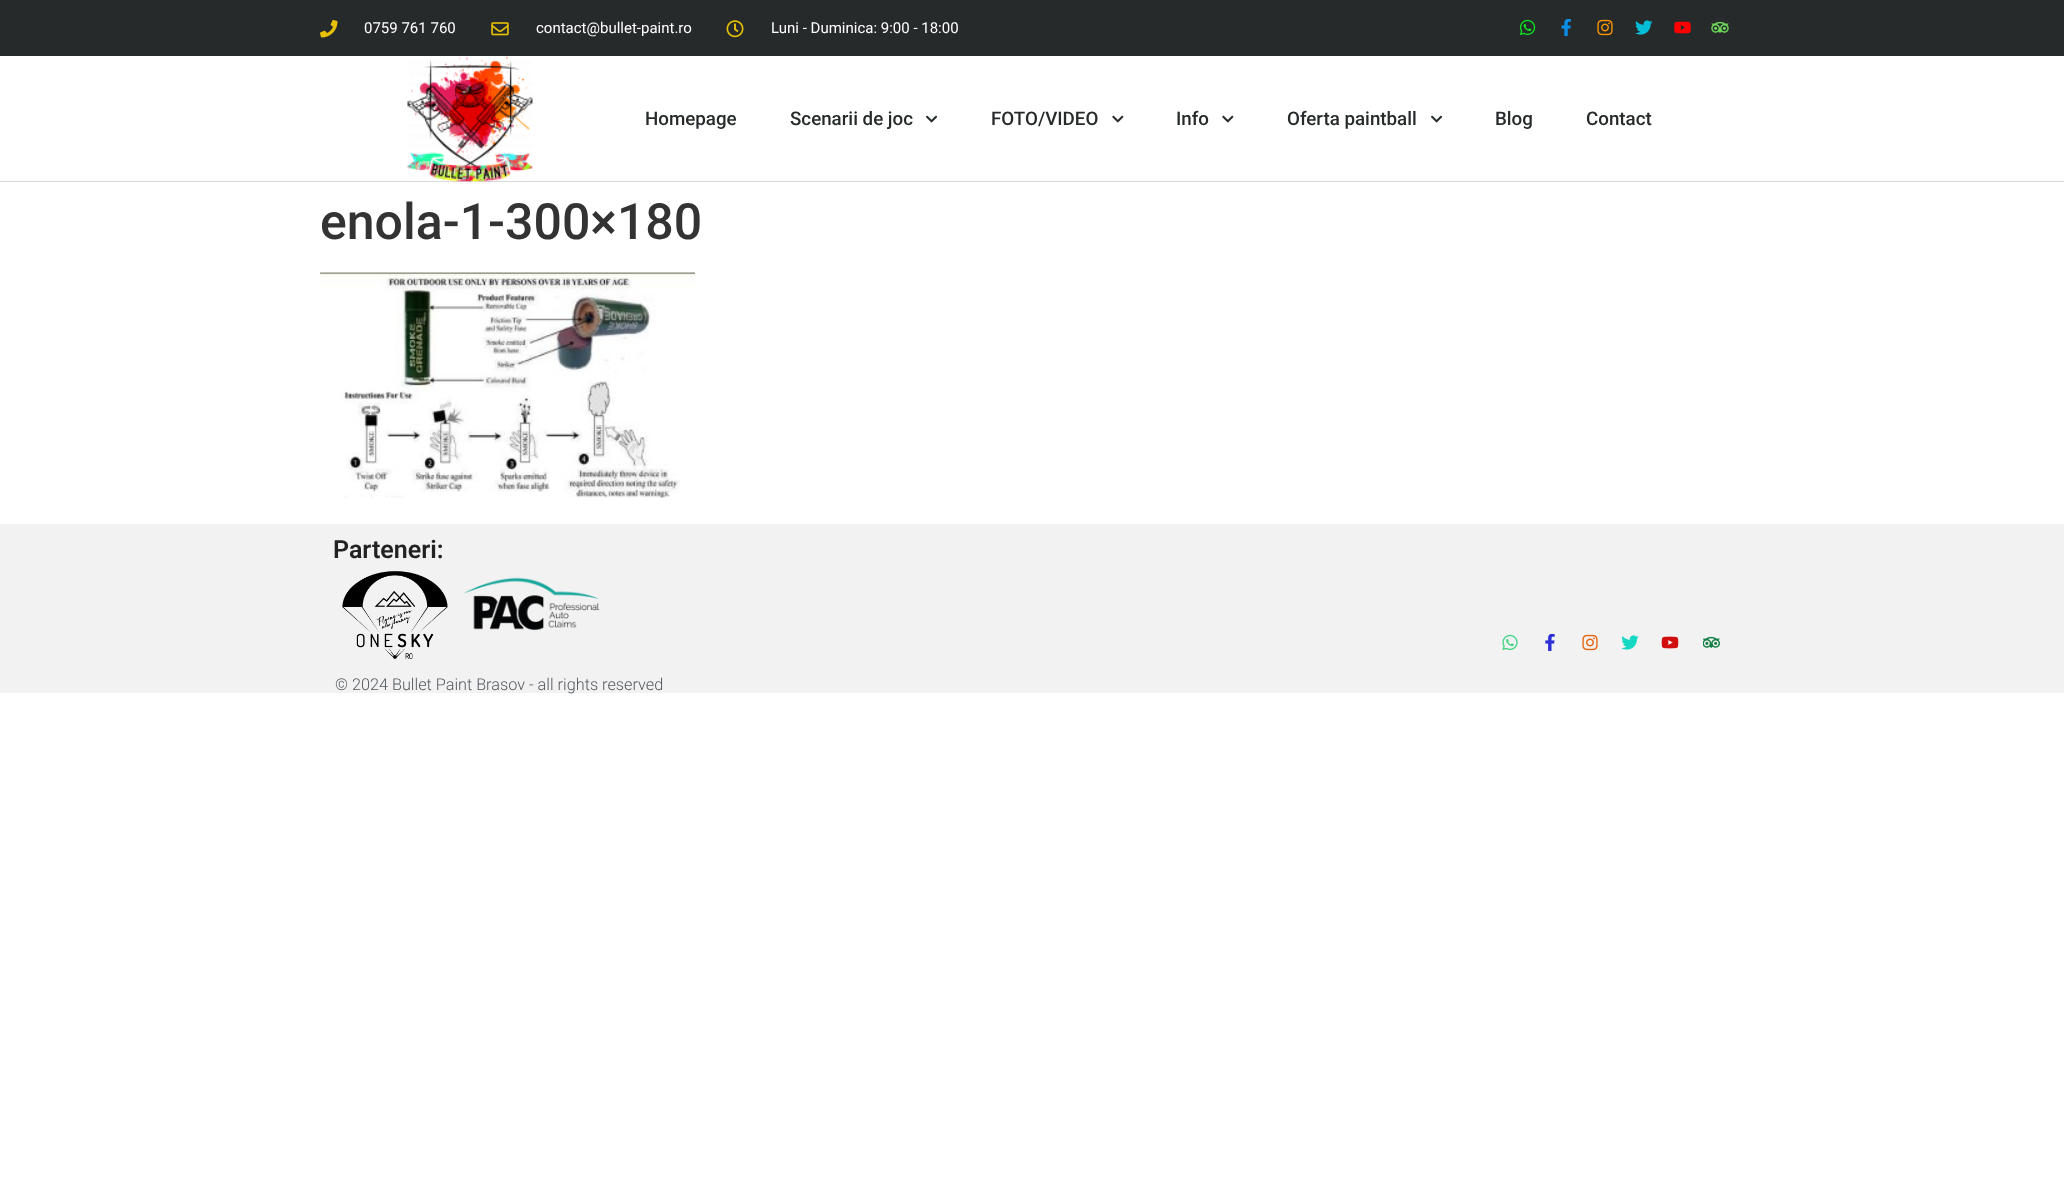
async function draw(canvas) {
	canvas.width = 2064;
	canvas.height = 1199;
	const c = canvas.getContext('2d');
	c.miterLimit = 4;
	c.fontKerning = 'normal';
	async function loadImage(src) {
		const img = new Image();
		img.src = src;
		await img.decode();
		return img;
	}

	c.fillStyle = '#fff';
	c.fillRect(0, 0, 2064, 1199);
	c.fillStyle = '#262a2b';
	c.fillRect(0, 0, 2064, 56);
	c.drawImage(await loadImage('img1.png'), 320, 20, 18, 18);
	c.font = '15px Roboto';
	c.fillStyle = '#fff';
	c.fillText('0759 761 760', 364, 33);
	c.drawImage(await loadImage('img2.png'), 491, 22, 18, 14);
	c.fillText('contact@bullet-paint.ro', 536, 33);
	c.drawImage(await loadImage('img3.png'), 726, 20, 18, 18);
	c.fillText('Luni - Duminica: 9:00 - 18:00', 771, 33);
	c.drawImage(await loadImage('img4.png'), 1519, 19, 17, 17);
	c.drawImage(await loadImage('img5.png'), 1561, 19, 10, 17);
	c.drawImage(await loadImage('img6.png'), 1597, 19, 16, 17);
	c.drawImage(await loadImage('img7.png'), 1635, 20, 18, 15);
	c.drawImage(await loadImage('img8.png'), 1674, 21, 17, 13);
	c.drawImage(await loadImage('img9.png'), 1711, 21, 18, 12);
	c.fillStyle = '#d8d8d8';
	c.fillRect(0, 181, 2064, 1);
	c.drawImage(await loadImage('img10.png'), 407, 56, 126, 126);
	c.font = '500 18.75px Roboto';
	c.fillStyle = '#262a2b';
	c.fillText('Homepage', 645, 125);
	c.fillText('Scenarii de joc', 790, 125);
	c.drawImage(await loadImage('img11.png'), 926, 115, 12, 8);
	c.fillText('FOTO/VIDEO', 991, 125);
	c.drawImage(await loadImage('img12.png'), 1112, 115, 12, 8);
	c.fillText('Info', 1176, 125);
	c.drawImage(await loadImage('img12.png'), 1222, 115, 12, 8);
	c.fillText('Oferta paintball', 1287, 125);
	c.drawImage(await loadImage('img11.png'), 1431, 115, 12, 8);
	c.fillText('Blog', 1495, 125);
	c.fillText('Contact', 1586, 125);
	c.font = '500 50px Roboto';
	c.fillStyle = '#333';
	c.fillText('enola-1-300×180', 320, 239);
	c.drawImage(await loadImage('img13.png'), 320, 272, 375, 226);
	c.fillStyle = '#f2f2f2';
	c.fillRect(0, 524, 2064, 169);
	c.font = '600 25px Roboto';
	c.fillStyle = '#222';
	c.fillText('Parteneri:', 333, 558);
	c.drawImage(await loadImage('img14.png'), 342, 571, 106, 88);
	c.drawImage(await loadImage('img15.png'), 464, 577, 136, 54);
	c.drawImage(await loadImage('img16.png'), 1502, 634, 16, 17);
	c.drawImage(await loadImage('img17.png'), 1545, 634, 10, 17);
	c.drawImage(await loadImage('img18.png'), 1582, 634, 16, 17);
	c.drawImage(await loadImage('img19.png'), 1621, 635, 18, 15);
	c.drawImage(await loadImage('img20.png'), 1661, 636, 18, 13);
	c.drawImage(await loadImage('img21.png'), 1703, 636, 17, 12);
	c.font = '300 16.25px Roboto';
	c.fillStyle = '#54595f';
	c.fillText('© 2024 Bullet Paint Brasov - all rights reserved', 335, 690);
}

draw(document.querySelector('canvas'));
